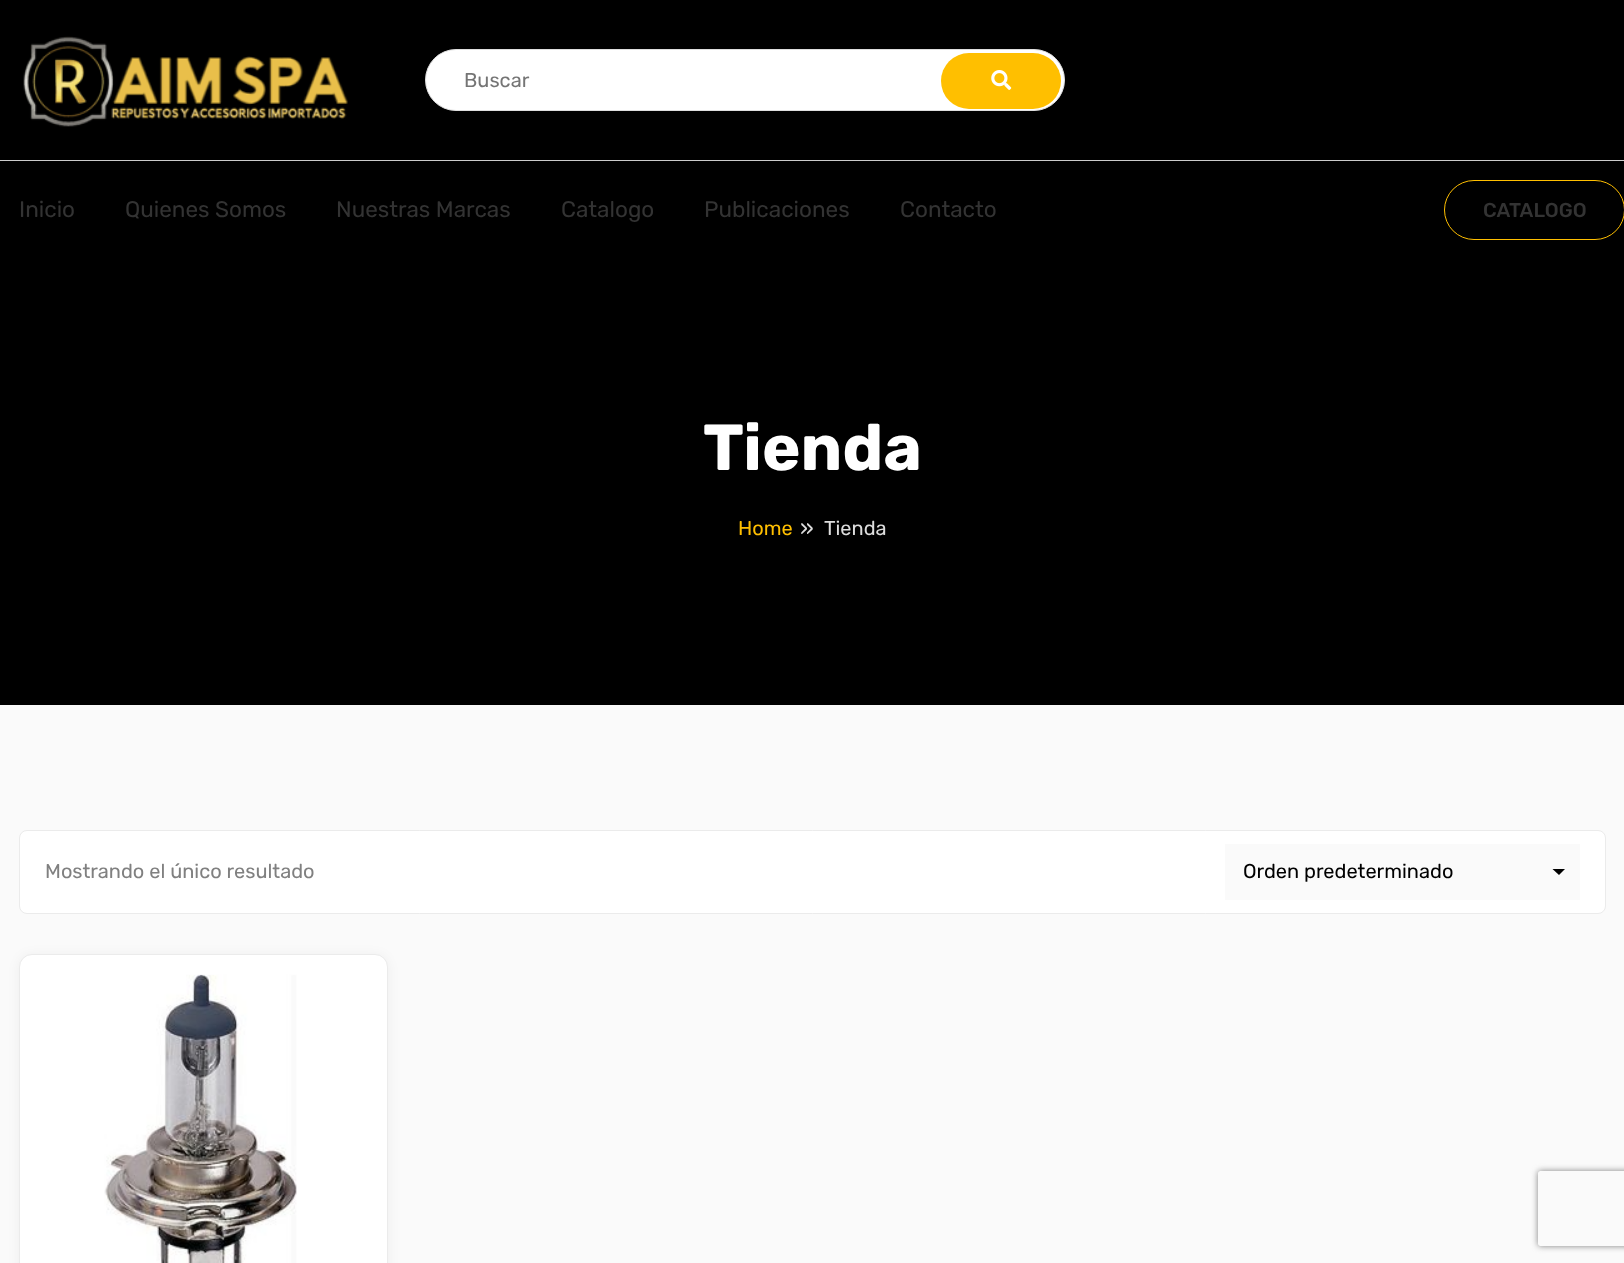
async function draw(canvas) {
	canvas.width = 1624;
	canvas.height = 1263;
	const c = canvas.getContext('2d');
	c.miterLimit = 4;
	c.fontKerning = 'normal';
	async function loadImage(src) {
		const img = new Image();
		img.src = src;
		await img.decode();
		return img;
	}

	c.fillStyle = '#000';
	c.fillRect(0, 0, 1624, 1263);
	c.fillStyle = '#ccc';
	c.fillRect(0, 160, 1624, 1);
	c.drawImage(await loadImage('img1.png'), 23, 36, 325, 91);
	c.fillStyle = '#fff';
	c.beginPath();
	c.roundRect(425.5, 49.5, 639, 61, 30.5);
	c.fill();
	c.strokeStyle = '#dfdfdf';
	c.stroke();
	c.font = '20px Rubik';
	c.fillStyle = '#757575';
	c.fillText('Buscar', 464, 87);
	c.fillStyle = '#ffbf00';
	c.beginPath();
	c.roundRect(941, 53, 120, 56, 28);
	c.fill();
	c.drawImage(await loadImage('img2.png'), 991, 70, 21, 20);
	c.font = '22.5px Rubik';
	c.fillStyle = '#333';
	for (const [text, x, y] of [
		['Inicio', 19, 217],
		['Quienes Somos', 125, 217],
		['Nuestras Marcas', 336, 217],
		['Catalogo', 561, 217],
		['Publicaciones', 704, 217],
		['Contacto', 900, 217],
	]) {
		c.fillText(text, x, y);
	}
	c.beginPath();
	c.roundRect(1444.5, 180.5, 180, 59, 29.5);
	c.strokeStyle = '#ffbf00';
	c.stroke();
	c.font = '500 20px Rubik';
	c.fillText('CATALOGO', 1483, 217);
	c.font = 'bold 65px Rubik';
	c.fillStyle = '#fff';
	c.fillText('Tienda', 703, 470);
	c.font = '20px Rubik';
	c.fillStyle = '#ffbf00';
	c.fillText('Home', 738, 535);
	c.font = '22.5px Rubik';
	c.fillStyle = '#ddd';
	c.fillText('»', 800, 536);
	c.font = '20px Rubik';
	c.fillText('Tienda', 824, 535);
	c.fillStyle = '#fafafa';
	c.fillRect(0, 705, 1624, 558);
	c.fillStyle = '#fff';
	c.beginPath();
	c.roundRect(19.5, 830.5, 1586, 83, 7.5);
	c.fill();
	c.strokeStyle = '#ebebeb';
	c.stroke();
	c.fillStyle = '#808080';
	c.fillText('Mostrando el único resultado', 45, 878);
	c.fillStyle = '#fafafa';
	c.fillRect(1225, 844, 355, 56);
	c.fillStyle = '#000';
	c.beginPath();
	c.moveTo(1552.5, 869);
	c.lineTo(1559, 875);
	c.lineTo(1565, 869);
	c.closePath();
	c.fill();
	c.fillText('Orden predeterminado', 1243, 878);
	c.fillStyle = '#0000000d';
	c.filter = 'blur(6px)';
	c.beginPath();
	c.roundRect(19, 955, 369, 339, 13);
	c.fill();
	c.filter = 'none';
	c.fillStyle = '#fff';
	c.beginPath();
	c.roundRect(19.5, 954.5, 368, 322, 12.5);
	c.fill();
	c.stroke();
	c.drawImage(await loadImage('img3.png'), 104, 974, 193, 289);
	c.save();
	c.beginPath();
	c.moveTo(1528, 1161);
	c.lineTo(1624, 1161);
	c.lineTo(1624, 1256);
	c.lineTo(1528, 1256);
	c.closePath();
	c.moveTo(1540.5, 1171);
	c.lineTo(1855.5, 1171);
	c.bezierCurveTo(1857, 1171, 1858, 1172, 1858, 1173.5);
	c.lineTo(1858, 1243.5);
	c.bezierCurveTo(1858, 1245, 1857, 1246, 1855.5, 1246);
	c.lineTo(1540.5, 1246);
	c.bezierCurveTo(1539, 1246, 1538, 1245, 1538, 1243.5);
	c.lineTo(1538, 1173.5);
	c.bezierCurveTo(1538, 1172, 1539, 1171, 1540.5, 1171);
	c.closePath();
	c.clip('evenodd');
	c.fillStyle = '#808080';
	c.filter = 'blur(3px)';
	c.beginPath();
	c.roundRect(1538, 1171, 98, 75, 2.5);
	c.fill();
	c.filter = 'none';
	c.restore();
}

draw(document.querySelector('canvas'));
